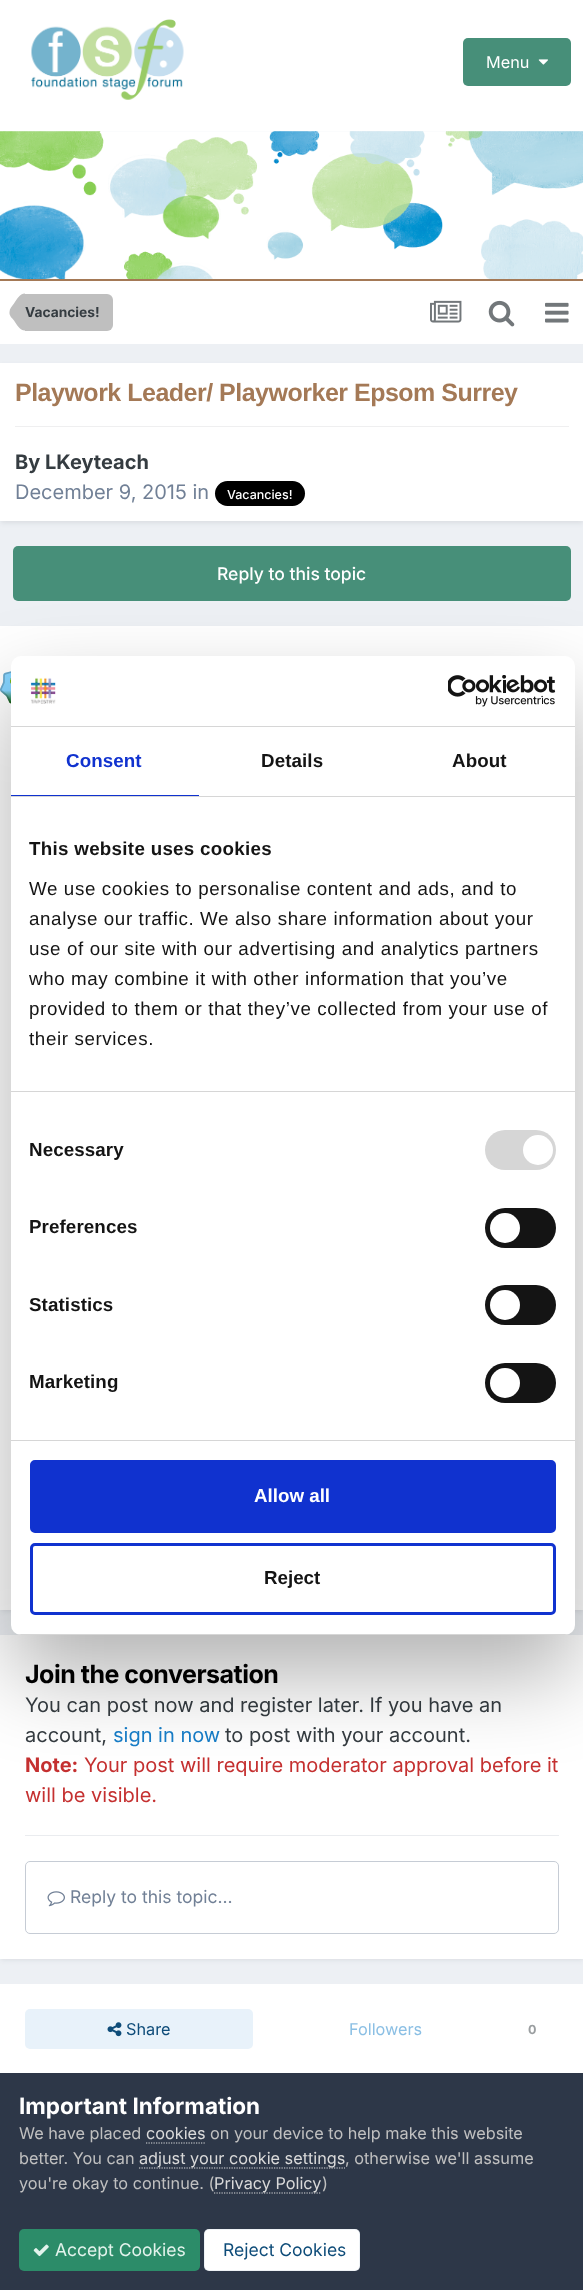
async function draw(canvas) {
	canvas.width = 583;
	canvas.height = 2290;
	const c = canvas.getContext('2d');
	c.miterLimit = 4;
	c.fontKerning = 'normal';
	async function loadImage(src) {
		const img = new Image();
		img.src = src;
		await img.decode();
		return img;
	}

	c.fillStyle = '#edf0f4';
	c.fillRect(0, 0, 583, 2290);
	c.fillStyle = '#fff';
	c.fillRect(0, 0, 583, 131);
	c.drawImage(await loadImage('img1.png'), 31, 19, 153, 81);
	c.fillStyle = '#478f79';
	c.beginPath();
	c.roundRect(463, 38, 108, 48, 5);
	c.fill();
	c.font = '16.25px Inter';
	c.fillStyle = '#fff';
	c.fillText('Menu', 486, 68);
	c.drawImage(await loadImage('img2.png'), 538, 59, 10, 6);
	c.drawImage(await loadImage('img3.png'), 0, 131, 583, 148);
	c.fillStyle = '#a47956';
	c.fillRect(0, 279, 583, 2);
	c.fillStyle = '#fff';
	c.fillRect(0, 281, 583, 63);
	c.fillStyle = '#bfbfbf';
	c.beginPath();
	c.roundRect(25, 294, 88, 37, [0, 6, 6, 0]);
	c.fill();
	c.beginPath();
	c.moveTo(25, 330.5);
	c.bezierCurveTo(19.5, 330.5, 16.5, 324, 14, 320.5);
	c.bezierCurveTo(12, 318, 9, 315.5, 9.5, 312);
	c.lineTo(25, 312);
	c.closePath();
	c.moveTo(25, 293.5);
	c.lineTo(25, 312);
	c.lineTo(9.5, 312);
	c.bezierCurveTo(9.5, 308.5, 12, 306, 14, 303.5);
	c.bezierCurveTo(16.5, 300, 19.5, 293.5, 25, 293.5);
	c.closePath();
	c.fill();
	c.font = 'bold 13.75px Inter';
	c.fillStyle = '#353c41';
	c.fillText('Vacancies!', 25, 317);
	c.drawImage(await loadImage('img4.png'), 430, 300, 32, 23);
	c.drawImage(await loadImage('img5.png'), 488, 300, 27, 27);
	c.drawImage(await loadImage('img6.png'), 545, 302, 24, 21);
	c.fillStyle = '#2d37481a';
	c.filter = 'blur(2.5px)';
	c.beginPath();
	c.rect(1, 366, 582, 157);
	c.fill();
	c.filter = 'none';
	c.fillStyle = '#fff';
	c.fillRect(0, 363, 583, 158);
	c.letterSpacing = '-0.5px';
	c.font = 'bold 25px Liberation Sans';
	c.fillStyle = '#a47956';
	c.fillText('Playwork Leader/ Playworker Epsom Surrey', 15, 401);
	c.fillStyle = '#efeff0';
	c.fillRect(15, 426, 554, 1);
	c.letterSpacing = '0px';
	c.font = 'bold 20px Inter';
	c.fillStyle = '#353c41';
	c.fillText('By LKeyteach', 15, 469);
	c.font = '20px Inter';
	c.fillStyle = '#718096';
	c.fillText('December 9, 2015 in', 15, 499);
	c.fillStyle = '#000';
	c.beginPath();
	c.roundRect(215, 481, 90, 25, 12.5);
	c.fill();
	c.font = '500 12.5px Inter';
	c.fillStyle = '#fff';
	c.fillText('Vacancies!', 227, 499);
	c.fillStyle = '#478f79';
	c.beginPath();
	c.roundRect(13, 546, 558, 55, 5);
	c.fill();
	c.font = '500 17.5px Inter';
	c.fillStyle = '#fff';
	c.fillText('Reply to this topic', 217, 580);
	c.fillStyle = '#2d37481a';
	c.filter = 'blur(2.5px)';
	c.beginPath();
	c.rect(1, 630, 582, 981);
	c.fill();
	c.filter = 'none';
	c.fillStyle = '#fff';
	c.fillRect(0, 626, 583, 984);
	c.drawImage(await loadImage('img7.png'), 0, 666, 11, 38);
	c.fillStyle = '#2d37481a';
	c.filter = 'blur(2.5px)';
	c.beginPath();
	c.rect(1, 1639, 582, 321);
	c.fill();
	c.filter = 'none';
	c.fillStyle = '#fff';
	c.fillRect(0, 1635, 583, 324);
	c.fillStyle = '#eaecef';
	c.fillRect(25, 1835, 534, 1);
	c.letterSpacing = '-0.5px';
	c.font = 'bold 25px Inter';
	c.fillStyle = '#000';
	c.fillText('Join the conversation', 25, 1683);
	c.letterSpacing = '0px';
	c.font = '20px Inter';
	c.fillStyle = '#353c41';
	c.fillText('You can post now and register later. If you have an', 25, 1712);
	c.fillText('account,', 25, 1742);
	c.fillStyle = '#177ec9';
	c.fillText('sign in now', 113, 1742);
	c.fillStyle = '#353c41';
	c.fillText('to post with your account.', 225, 1742);
	c.font = 'bold 20px Inter';
	c.fillStyle = '#c53030';
	c.fillText('Note:', 25, 1772);
	c.font = '20px Inter';
	c.fillText('Your post will require moderator approval before it', 84, 1772);
	c.fillText('will be visible.', 25, 1802);
	c.beginPath();
	c.roundRect(25.5, 1861.5, 533, 72, 4.5);
	c.strokeStyle = '#c6ccd5';
	c.stroke();
	c.drawImage(await loadImage('img8.png'), 47, 1891, 18, 16);
	c.font = '17.5px Inter';
	c.fillStyle = '#718096';
	c.fillText('Reply to this topic...', 70, 1903);
	c.fillStyle = '#fff';
	c.fillRect(0, 1984, 583, 89);
	c.fillStyle = '#e8f2fa';
	c.beginPath();
	c.roundRect(25, 2009, 228, 40, 5);
	c.fill();
	c.drawImage(await loadImage('img9.png'), 107, 2022, 15, 15);
	c.font = '16.25px Inter';
	c.fillStyle = '#0e4c79';
	c.fillText('Share', 126, 2035);
	c.fillStyle = '#8bbfe4';
	c.fillText('Followers', 349, 2035);
	c.font = 'bold 12.5px Inter';
	c.fillStyle = '#9a9ea0';
	c.fillText('0', 528, 2034);
	c.fillStyle = '#0000004d';
	c.filter = 'blur(42.5px)';
	c.beginPath();
	c.roundRect(11, 696, 564, 979, 10);
	c.fill();
	c.filter = 'none';
	c.fillStyle = '#fff';
	c.beginPath();
	c.roundRect(11, 656, 564, 979, 10);
	c.fill();
	c.fillStyle = '#d6d6d6';
	c.fillRect(11, 726, 564, 1);
	c.drawImage(await loadImage('img10.png'), 30, 677, 26, 27);
	c.drawImage(await loadImage('img11.png'), 448, 675, 108, 32);
	c.fillRect(11, 796, 564, 1);
	c.fillStyle = '#1032cf';
	c.fillRect(11, 795, 188, 1);
	c.letterSpacing = '0.1px';
	c.font = 'bold 18.75px Liberation Sans';
	c.fillText('Consent', 66, 767);
	c.fillStyle = '#141414';
	c.fillText('Details', 261, 767);
	c.fillText('About', 452, 767);
	c.fillStyle = '#d6d6d6';
	c.fillRect(11, 1091, 564, 1);
	c.letterSpacing = '0.3px';
	c.fillStyle = '#141414';
	c.fillText('This website uses cookies', 29, 855);
	c.letterSpacing = '0.62px';
	c.font = '18.75px Liberation Sans';
	for (const [text, x, y] of [
		['We use cookies to personalise content and ads, and to', 29, 895],
		['analyse our traffic. We also share information about your', 29, 925],
		['use of our site with our advertising and analytics partners', 29, 955],
		['who may combine it with other information that you’ve', 29, 985],
		['provided to them or that they’ve collected from your use of', 29, 1015],
		['their services.', 29, 1045],
	]) {
		c.fillText(text, x, y);
	}
	c.fillStyle = '#d6d6d6';
	c.fillRect(11, 1440, 564, 1);
	c.letterSpacing = '0.1px';
	c.font = 'bold 18.75px Liberation Sans';
	c.fillStyle = '#141414';
	c.fillText('Necessary', 29, 1156);
	c.fillStyle = '#d6d6d6';
	c.beginPath();
	c.roundRect(485, 1130, 71, 40, 20);
	c.fill();
	c.fillStyle = '#fff';
	c.beginPath();
	c.arc(538, 1150, 15, 0, 2 * Math.PI);
	c.fill();
	c.fillStyle = '#141414';
	c.fillText('Preferences', 29, 1233);
	c.beginPath();
	c.roundRect(485, 1208, 71, 40, 20);
	c.fill();
	c.fillStyle = '#fff';
	c.beginPath();
	c.arc(505, 1228, 15, 0, 2 * Math.PI);
	c.fill();
	c.fillStyle = '#141414';
	c.fillText('Statistics', 29, 1311);
	c.beginPath();
	c.roundRect(485, 1285, 71, 40, 20);
	c.fill();
	c.fillStyle = '#fff';
	c.beginPath();
	c.arc(505, 1305, 15, 0, 2 * Math.PI);
	c.fill();
	c.fillStyle = '#141414';
	c.fillText('Marketing', 29, 1388);
	c.beginPath();
	c.roundRect(485, 1363, 71, 40, 20);
	c.fill();
	c.fillStyle = '#fff';
	c.beginPath();
	c.arc(505, 1383, 15, 0, 2 * Math.PI);
	c.fill();
	c.save();
	c.beginPath();
	c.roundRect(11, 656, 564, 979, 10);
	c.clip();
	c.fillStyle = '#d6d6d6';
	c.fillRect(11, 1634, 564, 1);
	c.restore();
	c.fillStyle = '#1032cf';
	c.beginPath();
	c.roundRect(31.5, 1461.5, 523, 70, 3.5);
	c.fill();
	c.strokeStyle = '#1032cf';
	c.lineWidth = 3;
	c.stroke();
	c.letterSpacing = '0px';
	c.fillStyle = '#fff';
	c.fillText('Allow all', 254, 1502);
	c.beginPath();
	c.roundRect(31.5, 1544.5, 523, 69, 3.5);
	c.stroke();
	c.fillStyle = '#141414';
	c.fillText('Reject', 264, 1584);
	c.fillStyle = '#2d3748';
	c.fillRect(0, 2073, 583, 217);
	c.font = 'bold 22.5px Inter';
	c.fillStyle = '#fff';
	c.fillText('Important Information', 19, 2114);
	c.font = '16.25px Inter';
	c.fillStyle = '#c0c0c0';
	c.fillText('We have placed', 19, 2139);
	c.fillStyle = '#dadada';
	c.fillText('cookies', 146, 2139);
	c.beginPath();
	c.moveTo(146, 2143);
	c.lineTo(205, 2143);
	c.strokeStyle = '#dadada';
	c.lineWidth = 1.2;
	c.setLineDash([1.25, 1.25]);
	c.stroke();
	c.fillStyle = '#c0c0c0';
	c.fillText('on your device to help make this website', 210, 2139);
	c.fillText('better. You can', 19, 2164);
	c.beginPath();
	c.moveTo(139, 2168);
	c.lineTo(345, 2168);
	c.stroke();
	c.fillStyle = '#dadada';
	c.fillText('adjust your cookie settings', 139, 2164);
	c.fillStyle = '#c0c0c0';
	c.fillText(', otherwise we\'ll assume', 345, 2164);
	c.fillText('you\'re okay to continue. (', 19, 2189);
	c.beginPath();
	c.moveTo(214, 2193);
	c.lineTo(321, 2193);
	c.stroke();
	c.fillStyle = '#dadada';
	c.fillText('Privacy Policy', 214, 2189);
	c.fillStyle = '#c0c0c0';
	c.fillText(')', 322, 2189);
	c.fillStyle = '#2c8c69';
	c.beginPath();
	c.roundRect(19, 2229, 181, 42, 5);
	c.fill();
	c.drawImage(await loadImage('img12.png'), 33, 2244, 16, 13);
	c.font = '17.5px Inter';
	c.fillStyle = '#e3f3ec';
	c.fillText('Accept Cookies', 55, 2256);
	c.fillStyle = '#fff';
	c.beginPath();
	c.roundRect(204, 2229, 156, 42, 5);
	c.fill();
	c.beginPath();
	c.roundRect(204.5, 2229.5, 155, 41, 4.5);
	c.strokeStyle = '#0e4c7912';
	c.lineWidth = 1;
	c.setLineDash([]);
	c.stroke();
	c.fillStyle = '#0e4c79';
	c.fillText('Reject Cookies', 223, 2256);
}

draw(document.querySelector('canvas'));
